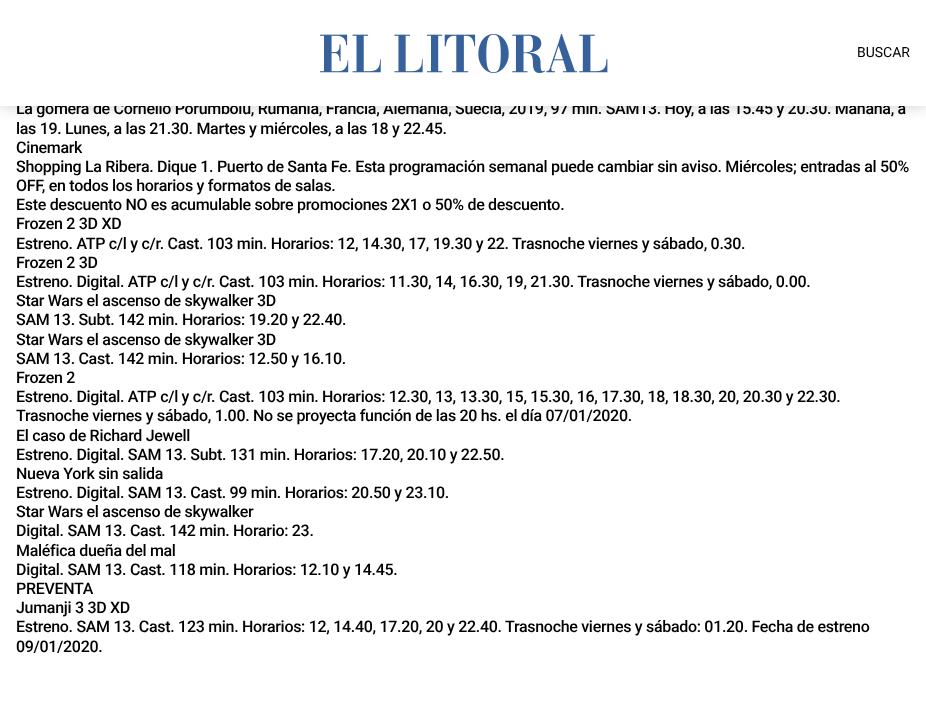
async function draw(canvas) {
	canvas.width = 926;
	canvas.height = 712;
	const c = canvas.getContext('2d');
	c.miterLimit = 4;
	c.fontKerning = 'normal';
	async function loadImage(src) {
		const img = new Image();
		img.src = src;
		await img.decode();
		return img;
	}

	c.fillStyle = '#fff';
	c.fillRect(0, 0, 926, 712);
	c.fillStyle = '#00000033';
	c.filter = 'blur(7.5px)';
	c.beginPath();
	c.rect(0, 0, 926, 106);
	c.fill();
	c.filter = 'none';
	c.letterSpacing = '-0.3px';
	c.font = '500 16px Roboto';
	c.fillStyle = '#000';
	c.fillText('La gomera de Cornelio Porumboiu, Rumania, Francia, Alemania, Suecia, 2019, 97 min. SAM13. Hoy, a las 15.45 y 20.30. Mañana, a', 16, 114);
	c.fillStyle = '#fff';
	c.fillRect(0, 0, 926, 106);
	c.drawImage(await loadImage('img1.png'), 320, 33, 288, 40);
	c.letterSpacing = '0px';
	c.font = '14px Roboto';
	c.fillStyle = '#000';
	c.fillText('BUSCAR', 857, 57);
	c.letterSpacing = '-0.3px';
	c.font = '500 16px Roboto';
	for (const [text, x, y] of [
		['las 19. Lunes, a las 21.30. Martes y miércoles, a las 18 y 22.45.', 16, 134],
		['Cinemark', 16, 153],
		['Shopping La Ribera. Dique 1. Puerto de Santa Fe. Esta programación semanal puede cambiar sin aviso. Miércoles; entradas al 50%', 16, 172],
		['OFF, en todos los horarios y formatos de salas.', 16, 191],
		['Este descuento NO es acumulable sobre promociones 2X1 o 50% de descuento.', 16, 210],
		['Frozen 2 3D XD', 16, 229],
		['Estreno. ATP c/l y c/r. Cast. 103 min. Horarios: 12, 14.30, 17, 19.30 y 22. Trasnoche viernes y sábado, 0.30.', 16, 249],
		['Frozen 2 3D', 16, 268],
		['Estreno. Digital. ATP c/l y c/r. Cast. 103 min. Horarios: 11.30, 14, 16.30, 19, 21.30. Trasnoche viernes y sábado, 0.00.', 16, 287],
		['Star Wars el ascenso de skywalker 3D', 16, 306],
		['SAM 13. Subt. 142 min. Horarios: 19.20 y 22.40.', 16, 325],
		['Star Wars el ascenso de skywalker 3D', 16, 345],
		['SAM 13. Cast. 142 min. Horarios: 12.50 y 16.10.', 16, 364],
		['Frozen 2', 16, 383],
		['Estreno. Digital. ATP c/l y c/r. Cast. 103 min. Horarios: 12.30, 13, 13.30, 15, 15.30, 16, 17.30, 18, 18.30, 20, 20.30 y 22.30.', 16, 402],
		['Trasnoche viernes y sábado, 1.00. No se proyecta función de las 20 hs. el día 07/01/2020.', 16, 421],
		['El caso de Richard Jewell', 16, 441],
		['Estreno. Digital. SAM 13. Subt. 131 min. Horarios: 17.20, 20.10 y 22.50.', 16, 460],
		['Nueva York sin salida', 16, 479],
		['Estreno. Digital. SAM 13. Cast. 99 min. Horarios: 20.50 y 23.10.', 16, 498],
		['Star Wars el ascenso de skywalker', 16, 517],
		['Digital. SAM 13. Cast. 142 min. Horario: 23.', 16, 536],
		['Maléfica dueña del mal', 16, 556],
		['Digital. SAM 13. Cast. 118 min. Horarios: 12.10 y 14.45.', 16, 575],
		['PREVENTA', 16, 594],
		['Jumanji 3 3D XD', 16, 613],
		['Estreno. SAM 13. Cast. 123 min. Horarios: 12, 14.40, 17.20, 20 y 22.40. Trasnoche viernes y sábado: 01.20. Fecha de estreno', 16, 632],
		['09/01/2020.', 16, 652],
	]) {
		c.fillText(text, x, y);
	}
}

draw(document.querySelector('canvas'));
